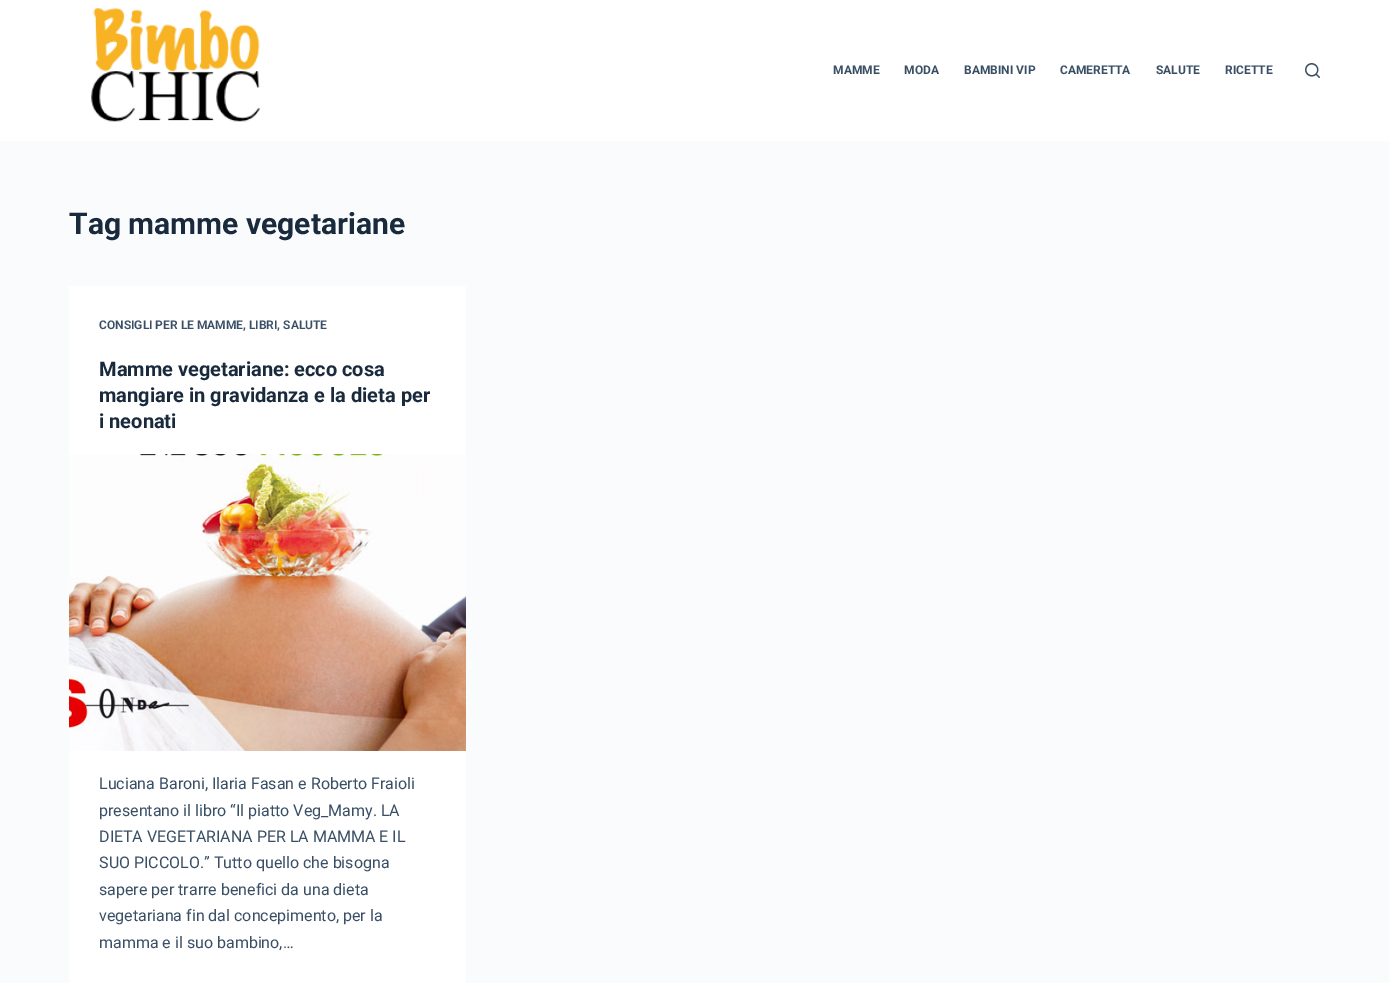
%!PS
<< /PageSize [1389 983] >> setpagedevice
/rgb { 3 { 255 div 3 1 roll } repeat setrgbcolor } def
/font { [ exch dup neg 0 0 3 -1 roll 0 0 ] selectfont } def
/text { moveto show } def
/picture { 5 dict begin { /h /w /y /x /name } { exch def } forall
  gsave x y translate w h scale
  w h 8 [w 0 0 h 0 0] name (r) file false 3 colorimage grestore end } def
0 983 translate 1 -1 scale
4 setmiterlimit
250 251 252 rgb
0 0 1389 983 rectfill
255 255 255 rgb
0 0 1389 141 rectfill
(img_01.rgb) 91 8 169 114 picture
(img_02.rgb) 1305 63 15 15 picture
69 286 397 697 rectfill
(img_03.rgb) 69 454 397 297 picture
/Roboto-Bold 12 font
58 79 102 rgb
(MAMME) 833 74 text
(MODA) 904 74 text
(BAMBINI VIP) 964 74 text
(CAMERETTA) 1060 74 text
(SALUTE) 1156 74 text
(RICETTE) 1225 74 text
/Roboto-Bold 30 font
25 42 61 rgb
(Tag mamme vegetariane) 69 234 text
/Roboto-SemiBold 12 font
58 79 102 rgb
(CONSIGLI PER LE MAMME, LIBRI, SALUTE) 99 329 text
/Roboto-Bold 20 font
25 42 61 rgb
(Mamme vegetariane: ecco cosa) 99 376 text
(mangiare in gravidanza e la dieta per) 99 402 text
(i neonati) 99 428 text
/Roboto-Regular 16 font
58 79 102 rgb
(Luciana Baroni, Ilaria Fasan e Roberto Fraioli) 99 789 text
(presentano il libro “Il piatto Veg_Mamy. LA) 99 816 text
(DIETA VEGETARIANA PER LA MAMMA E IL) 99 842 text
(SUO PICCOLO.” Tutto quello che bisogna) 99 868 text
(sapere per trarre benefici da una dieta) 99 895 text
(vegetariana fin dal concepimento, per la) 99 921 text
(mamma e il suo bambino,…) 99 948 text
showpage
